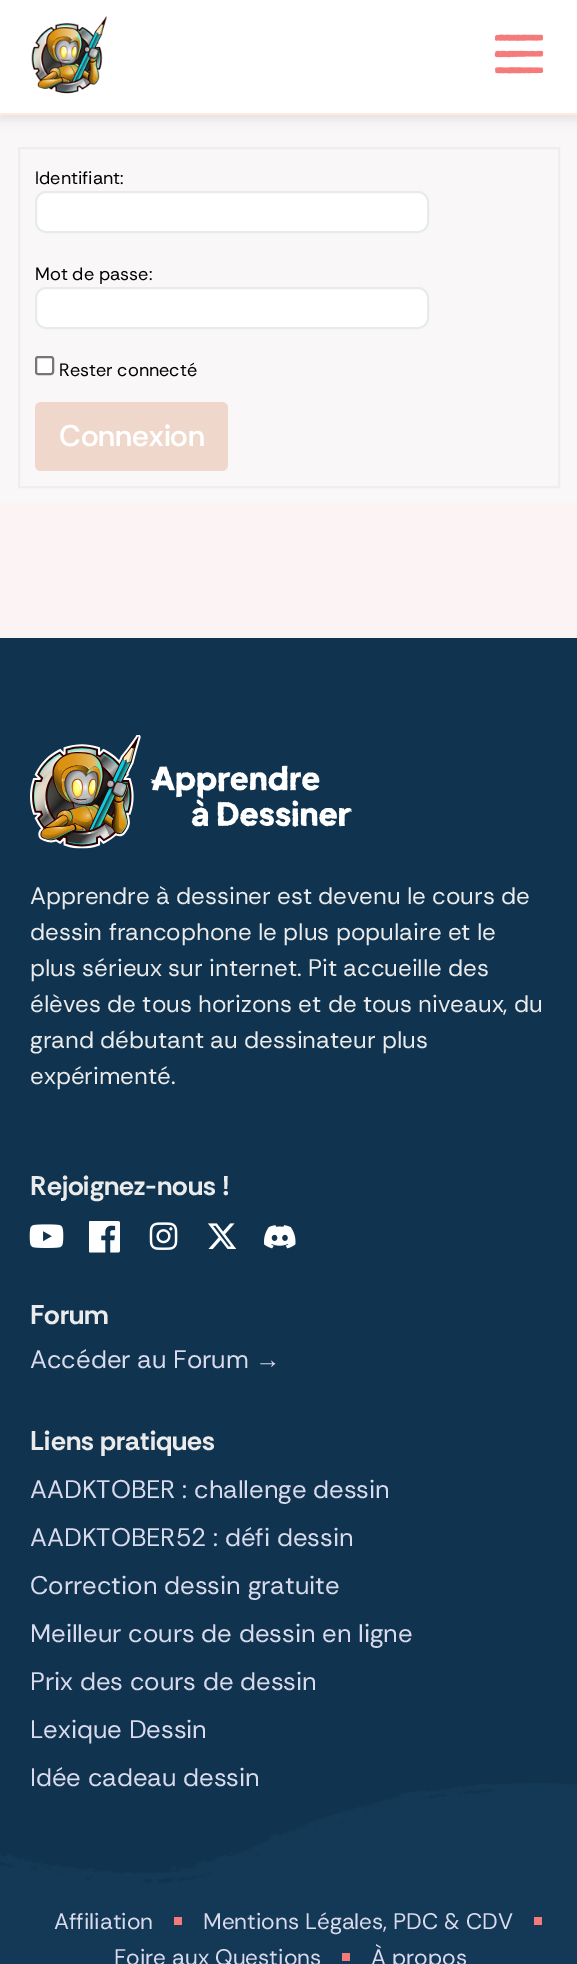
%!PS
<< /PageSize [577 1964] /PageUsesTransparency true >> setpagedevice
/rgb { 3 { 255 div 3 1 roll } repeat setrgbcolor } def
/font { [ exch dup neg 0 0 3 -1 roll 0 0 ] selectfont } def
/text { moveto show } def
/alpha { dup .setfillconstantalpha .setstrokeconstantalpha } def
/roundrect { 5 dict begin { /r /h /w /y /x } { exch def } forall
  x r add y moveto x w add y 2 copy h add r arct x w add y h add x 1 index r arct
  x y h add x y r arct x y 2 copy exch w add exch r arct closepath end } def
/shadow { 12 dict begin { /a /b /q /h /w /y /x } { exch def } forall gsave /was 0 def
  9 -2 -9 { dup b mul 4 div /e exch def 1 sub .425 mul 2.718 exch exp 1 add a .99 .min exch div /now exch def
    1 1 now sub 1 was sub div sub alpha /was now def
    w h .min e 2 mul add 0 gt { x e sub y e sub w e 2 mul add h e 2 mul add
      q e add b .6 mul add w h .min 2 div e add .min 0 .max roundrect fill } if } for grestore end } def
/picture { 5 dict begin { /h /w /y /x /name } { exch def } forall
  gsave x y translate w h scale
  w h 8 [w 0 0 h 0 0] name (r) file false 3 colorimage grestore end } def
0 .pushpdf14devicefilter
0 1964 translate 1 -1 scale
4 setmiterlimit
252 244 244 rgb
0 0 577 1964 rectfill
249 247 247 rgb
0 115 577 388 rectfill
50 50 50 rgb
0 6 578 114 0 5 0.1 shadow
255 255 255 rgb
0 0 577 113 rectfill
255 234 221 rgb
0 113 577 2 rectfill
(img_01.rgb) 31 16 76 78 picture
(img_02.rgb) 494 34 50 40 picture
238 238 238 rgb
2 setlinewidth
19 148 540 339 rectstroke
255 255 255 rgb
36 192 392 40 10 roundrect gsave fill grestore
232 235 237 rgb
stroke
255 255 255 rgb
36 288 392 40 10 roundrect gsave fill grestore
232 235 237 rgb
stroke
255 255 255 rgb
36 357 17 17 2 roundrect gsave fill grestore
118 118 118 rgb
stroke
239 215 203 rgb
35 402 193 69 6 roundrect fill
16 52 80 rgb
0 638 577 1326 rectfill
(img_03.rgb) 0 1783 577 181 picture
(img_04.rgb) 30 735 322 114 picture
(img_05.rgb) 29 1224 35 24 picture
(img_06.rgb) 89 1221 31 32 picture
(img_07.rgb) 149 1222 29 28 picture
(img_08.rgb) 208 1223 29 26 picture
(img_09.rgb) 264 1225 32 24 picture
244 123 122 rgb
174 1917 8 8 rectfill
534 1917 8 8 rectfill
342 1953 8 8 rectfill
/RethinkSans-Regular 18 font
0 0 0 rgb
(Identifiant:) 35 184 text
(Mot de passe:) 35 280 text
(Rester connecté) 59 376 text
/RethinkSans-SemiBold 30 font
255 255 255 rgb
(Connexion) 59 446 text
/RethinkSans-Regular 24 font
235 235 235 rgb
(Apprendre à dessiner est devenu le cours de) 30 904 text
(dessin francophone le plus populaire et le) 30 940 text
(plus sérieux sur internet. Pit accueille des) 30 976 text
(élèves de tous horizons et de tous niveaux, du) 30 1012 text
(grand débutant au dessinateur plus) 30 1048 text
(expérimenté.) 30 1084 text
/RethinkSans-Bold 27 font
(Rejoignez-nous !) 30 1195 text
(Forum) 30 1324 text
/RethinkSans-Regular 25.5 font
218 218 237 rgb
(Accéder au Forum) 30 1368 text
/LiberationSans-Regular 25.5 font
(→) 255 1368 text
/RethinkSans-Bold 27 font
235 235 235 rgb
(Liens pratiques) 30 1450 text
/RethinkSans-Regular 25.5 font
218 218 237 rgb
(AADKTOBER : challenge dessin) 30 1498 text
(AADKTOBER52 : défi dessin) 30 1546 text
(Correction dessin gratuite) 30 1594 text
(Meilleur cours de dessin en ligne) 30 1642 text
(Prix des cours de dessin) 30 1690 text
(Lexique Dessin) 30 1738 text
(Idée cadeau dessin) 30 1786 text
/RethinkSans-Regular 22.5 font
(Affiliation) 54 1929 text
(Mentions Légales, PDC & CDV) 203 1929 text
(Foire aux Questions) 114 1965 text
(À propos) 371 1965 text
.poppdf14devicefilter showpage
